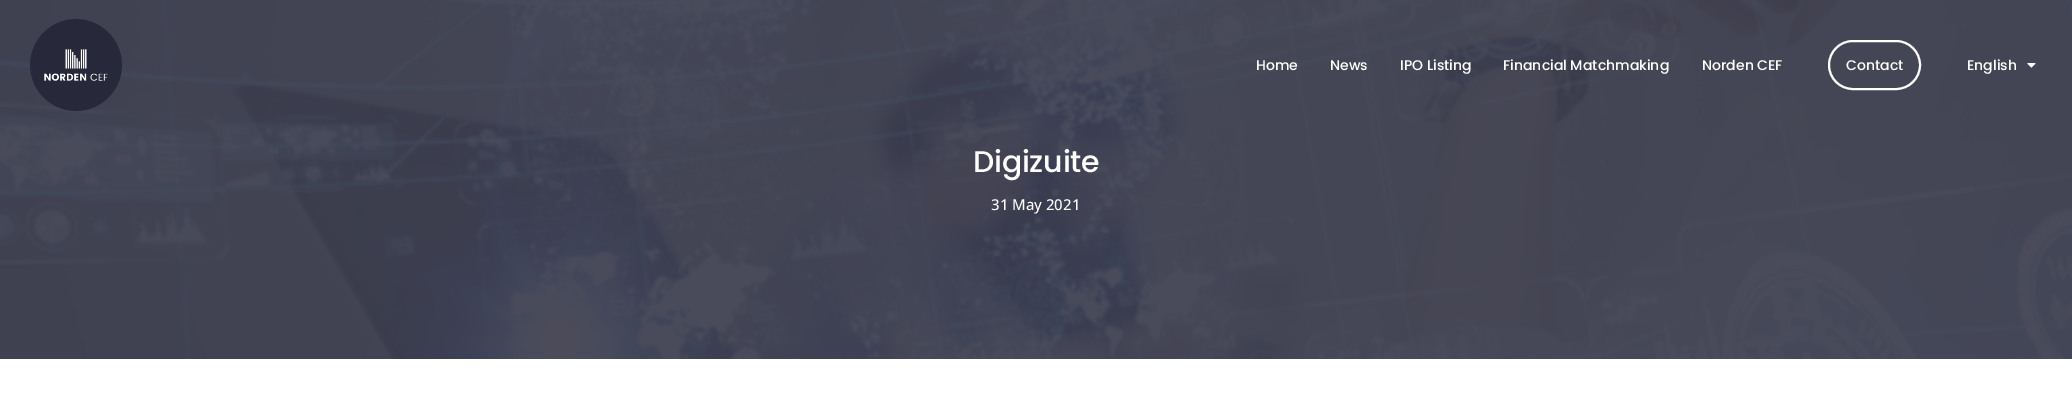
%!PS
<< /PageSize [2072 416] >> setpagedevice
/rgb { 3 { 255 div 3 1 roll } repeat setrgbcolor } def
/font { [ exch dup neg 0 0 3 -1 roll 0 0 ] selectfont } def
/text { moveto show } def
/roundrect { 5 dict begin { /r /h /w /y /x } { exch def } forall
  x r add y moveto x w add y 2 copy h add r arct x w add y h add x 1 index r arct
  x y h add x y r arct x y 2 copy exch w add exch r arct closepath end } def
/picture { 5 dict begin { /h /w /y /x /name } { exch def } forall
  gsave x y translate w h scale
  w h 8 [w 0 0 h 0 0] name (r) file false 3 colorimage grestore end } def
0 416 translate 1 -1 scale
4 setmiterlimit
255 255 255 rgb
0 0 2072 416 rectfill
(img_03.rgb) 0 0 2072 359 picture
(img_01.rgb) 30 19 92 92 picture
2 setlinewidth
1829 41 91 48 24 roundrect stroke
(img_02.rgb) 2027 63 9 5 picture
/Poppins-Medium 14 font
(Home) 1256 70 text
(News) 1330 70 text
(IPO Listing) 1400 70 text
(Financial Matchmaking) 1503 70 text
(Norden CEF) 1702 70 text
(Contact) 1846 70 text
(English) 1967 70 text
/Poppins-Medium 30 font
973 172 moveto -0.25 0 (Digizuite) ashow
/OpenSans-Medium 15 font
(31 May 2021) 991 210 text
showpage
